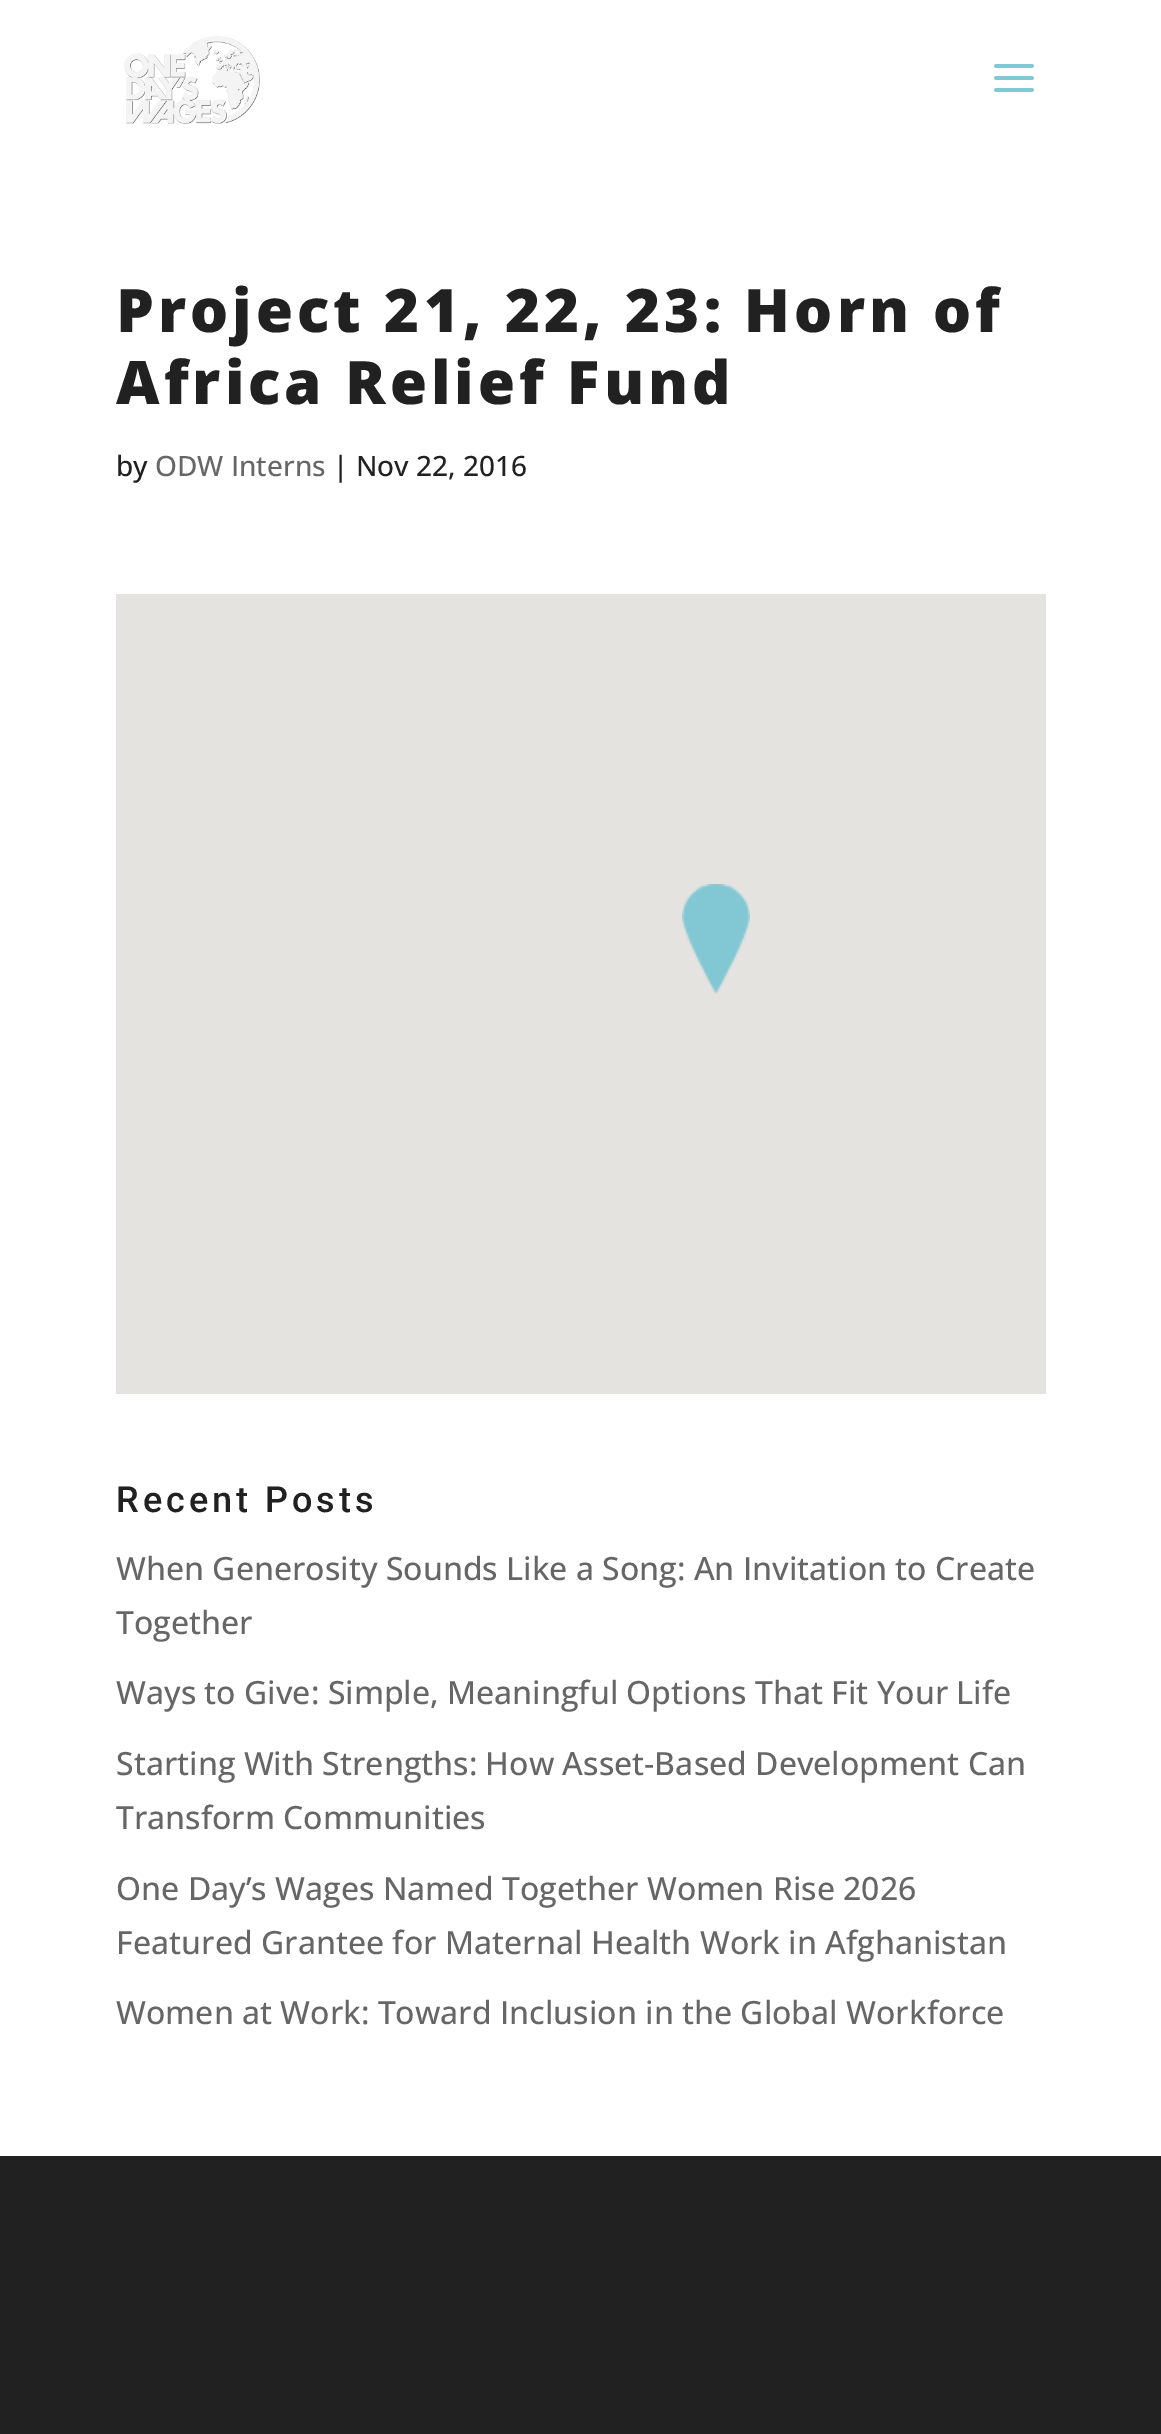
%!PS
<< /PageSize [1161 2434] >> setpagedevice
/rgb { 3 { 255 div 3 1 roll } repeat setrgbcolor } def
/font { [ exch dup neg 0 0 3 -1 roll 0 0 ] selectfont } def
/text { moveto show } def
/picture { 5 dict begin { /h /w /y /x /name } { exch def } forall
  gsave x y translate w h scale
  w h 8 [w 0 0 h 0 0] name (r) file false 3 colorimage grestore end } def
0 2434 translate 1 -1 scale
4 setmiterlimit
33 33 33 rgb
0 0 1161 2434 rectfill
255 255 255 rgb
0 0 1161 2156 rectfill
(img_01.rgb) 124 36 136 88 picture
(img_02.rgb) 994 64 40 28 picture
229 227 223 rgb
116 594 930 800 rectfill
(img_03.rgb) 682 884 68 110 picture
/OpenSans-ExtraBold 60 font
33 33 33 rgb
116 332 moveto 4 0 (Project 21, 22, 23: Horn of) ashow
116 404 moveto 4 0 (Africa Relief Fund) ashow
/OpenSans-Medium 28 font
(by) 116 476 text
102 102 102 rgb
(ODW Interns) 155 476 text
33 33 33 rgb
(| Nov 22, 2016) 333 476 text
/Roboto-Medium 36 font
116 1512 moveto 4 0 (Recent Posts) ashow
/OpenSans-Medium 32 font
102 102 102 rgb
(When Generosity Sounds Like a Song: An Invitation to Create) 116 1580 text
(Together) 116 1634 text
(Ways to Give: Simple, Meaningful Options That Fit Your Life) 116 1704 text
(Starting With Strengths: How Asset-Based Development Can) 116 1775 text
(Transform Communities) 116 1829 text
(One Day’s Wages Named Together Women Rise 2026) 116 1900 text
(Featured Grantee for Maternal Health Work in Afghanistan) 116 1954 text
(Women at Work: Toward Inclusion in the Global Workforce) 116 2024 text
showpage
